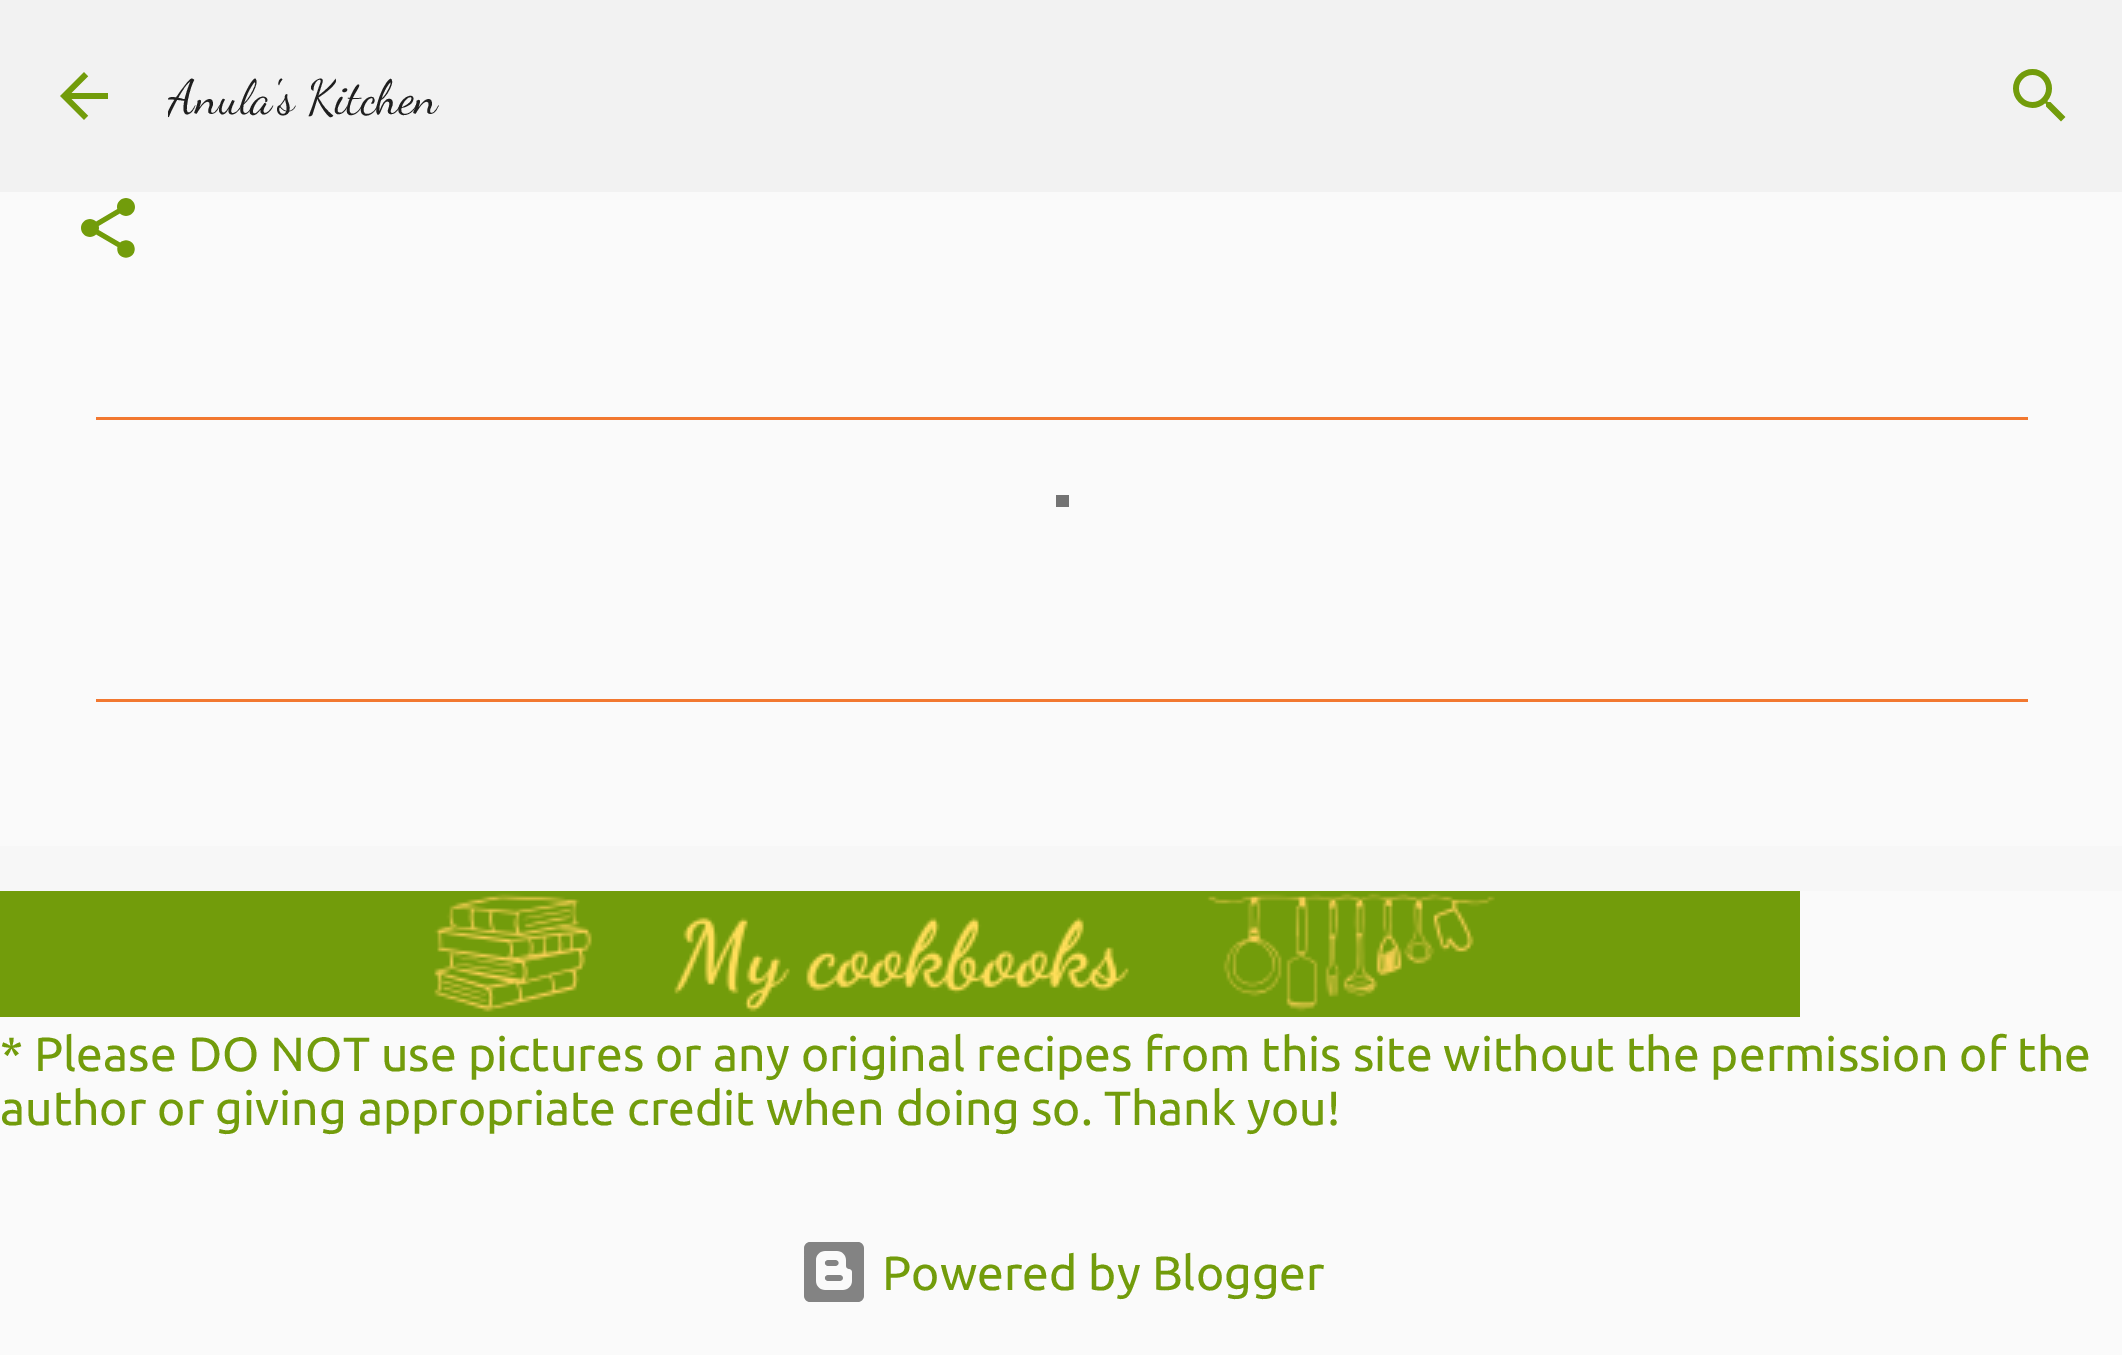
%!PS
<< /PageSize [2122 1355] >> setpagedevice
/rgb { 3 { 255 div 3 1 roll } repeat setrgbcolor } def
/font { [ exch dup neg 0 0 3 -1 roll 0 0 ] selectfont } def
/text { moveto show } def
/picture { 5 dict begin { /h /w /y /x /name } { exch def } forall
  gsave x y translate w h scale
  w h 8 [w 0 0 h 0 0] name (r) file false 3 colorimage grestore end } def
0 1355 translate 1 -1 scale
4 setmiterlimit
250 250 250 rgb
0 0 2122 1355 rectfill
242 242 242 rgb
0 0 2122 192 rectfill
(img_01.rgb) 60 72 48 48 picture
(img_02.rgb) 2013 69 53 53 picture
(img_03.rgb) 81 198 54 60 picture
242 120 48 rgb
96 417 1932 3 rectfill
96 699 1932 3 rectfill
247 247 247 rgb
0 846 2122 45 rectfill
(img_04.rgb) 0 891 1800 126 picture
(img_05.rgb) 804 1242 60 60 picture
115 115 115 rgb
1056 495 13 12 rectfill
gsave
168 69 1788 57 rectclip
/DancingScript-Regular 48 font
31 31 31 rgb
(Anula's Kitchen) 168 113 text
grestore
/Ubuntu-Regular 48 font
114 156 11 rgb
(* Please DO NOT use pictures or any original recipes from this site without the permission of the) 0 1071 text
(author or giving appropriate credit when doing so. Thank you!) 0 1125 text
(Powered by Blogger) 882 1290 text
showpage
